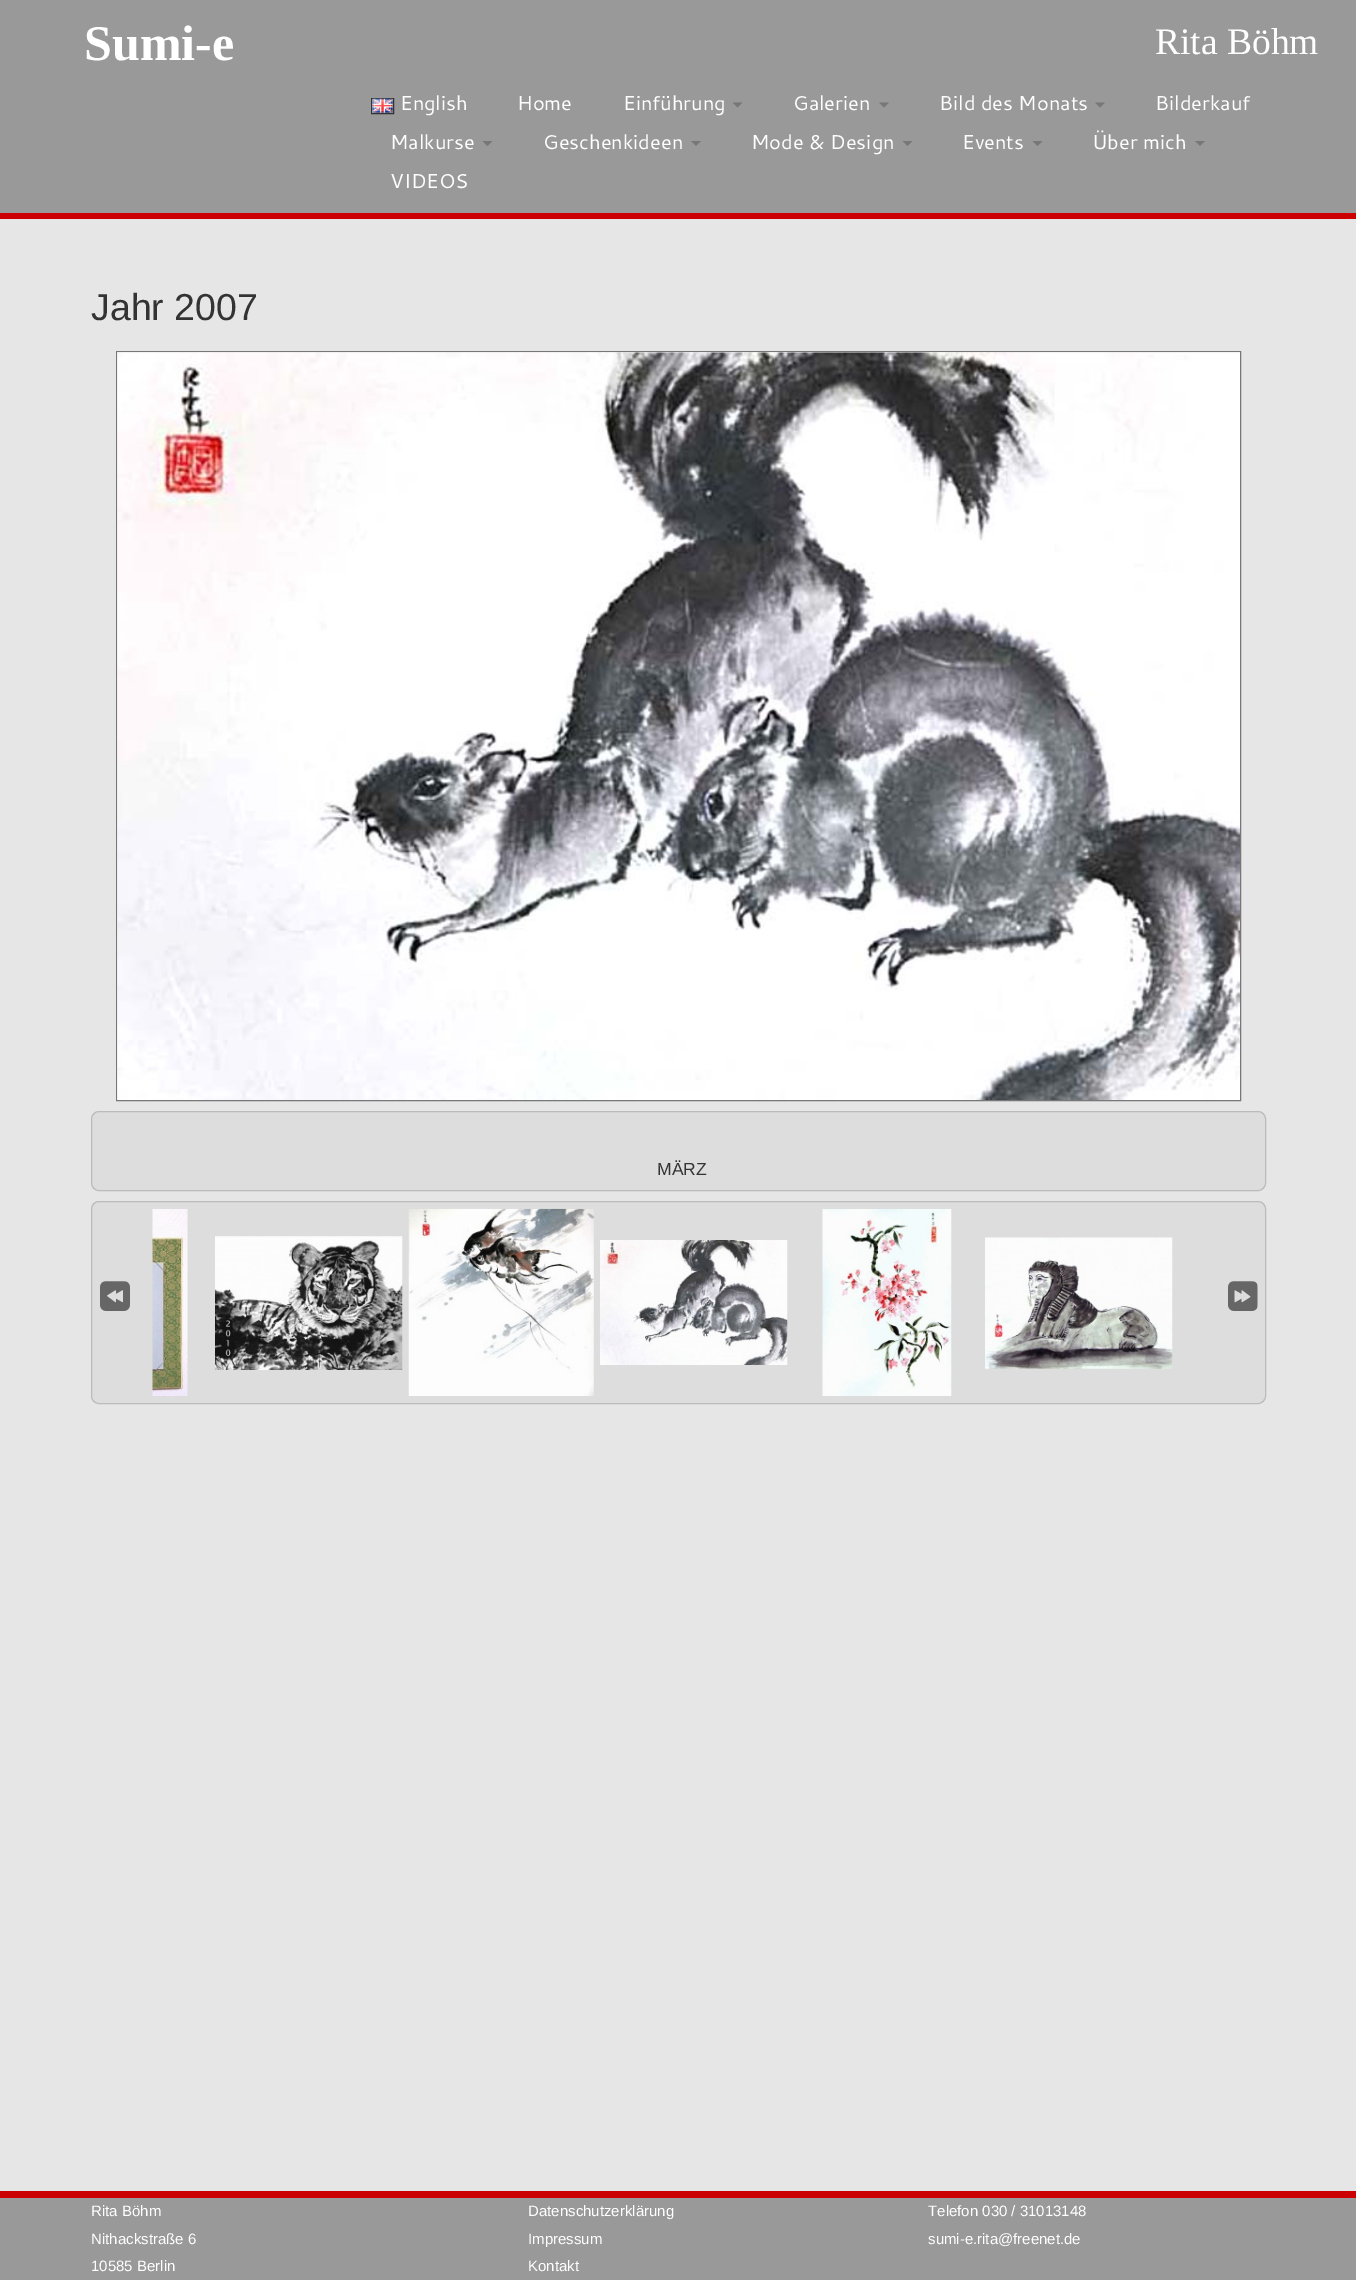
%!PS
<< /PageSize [1356 2280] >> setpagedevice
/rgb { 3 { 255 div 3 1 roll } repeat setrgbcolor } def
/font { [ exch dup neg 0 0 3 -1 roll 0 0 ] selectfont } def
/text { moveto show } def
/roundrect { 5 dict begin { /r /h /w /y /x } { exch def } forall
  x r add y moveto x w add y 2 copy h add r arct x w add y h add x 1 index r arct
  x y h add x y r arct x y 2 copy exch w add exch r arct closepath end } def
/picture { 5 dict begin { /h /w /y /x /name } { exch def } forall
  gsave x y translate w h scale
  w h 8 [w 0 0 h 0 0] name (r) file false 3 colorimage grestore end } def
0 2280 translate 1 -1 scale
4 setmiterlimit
230 230 230 rgb
0 0 1356 2280 rectfill
153 153 153 rgb
0 0 1356 213 rectfill
204 0 0 rgb
0 213 1356 6 rectfill
51 51 51 rgb
371.5 98.5 22 15 rectstroke
(img_01.rgb) 372 98 21 15 picture
119 119 119 rgb
732.5 102.5 moveto 10 0 rlineto -5 5 rlineto closepath fill
879 102.5 moveto 10 0 rlineto -5 5 rlineto closepath fill
1095 102.5 moveto 10 0 rlineto -5 5 rlineto closepath fill
482.5 141 moveto 10 0 rlineto -5 5 rlineto closepath fill
691 141 moveto 10 0 rlineto -5 5 rlineto closepath fill
902.5 141 moveto 10 0 rlineto -5 5 rlineto closepath fill
1032.5 141 moveto 10 0 rlineto -5 5 rlineto closepath fill
1195 141 moveto 10 0 rlineto -5 5 rlineto closepath fill
116.5 351.5 1124 749 rectstroke
(img_02.rgb) 117 352 1123 748 picture
221 221 221 rgb
91.5 1111.5 1174 79 7.5 roundrect gsave fill grestore
187 187 187 rgb
stroke
221 221 221 rgb
91.5 1201.5 1174 202 7.5 roundrect gsave fill grestore
187 187 187 rgb
stroke
(img_03.rgb) 100 1281 30 30 picture
(img_04.rgb) 152 1209 36 187 picture
(img_05.rgb) 215 1236 188 134 picture
(img_06.rgb) 408 1208 186 188 picture
(img_07.rgb) 600 1240 188 125 picture
(img_08.rgb) 822 1209 130 187 picture
(img_09.rgb) 985 1237 188 132 picture
(img_10.rgb) 1228 1281 30 30 picture
153 153 153 rgb
0 2198 1356 82 rectfill
204 0 0 rgb
0 2191 1356 7 rectfill
/LiberationSerif-Bold 50 font
255 255 255 rgb
(Sumi-e) 84 60 text
/LiberationSerif-Regular 37.5 font
(Rita Böhm) 1155 54 text
/Cantarell-Regular 20 font
(English) 400 110 text
(Home) 517 110 text
(Einführung) 623 110 text
(Galerien) 793 110 text
(Bild des Monats) 939 110 text
(Bilderkauf) 1155 110 text
(Malkurse) 390 149 text
(Geschenkideen) 543 149 text
(Mode & Design) 751 149 text
(Events) 962 149 text
(Über mich) 1092 149 text
(VIDEOS) 390 188 text
/LiberationSans-Regular 37.5 font
51 51 51 rgb
(Jahr 2007) 91 320 text
/LiberationSans-Regular 17.5 font
(MÄRZ) 657 1175 text
/LiberationSans-Regular 15 font
255 255 255 rgb
(Rita Böhm) 91 2216 text
(Nithackstraße 6) 91 2244 text
(10585 Berlin) 91 2271 text
(Datenschutzerklärung) 528 2216 text
(Impressum) 528 2244 text
(Kontakt) 528 2271 text
(Telefon 030 / 31013148) 928 2216 text
(sumi-e.rita@freenet.de) 928 2244 text
showpage
